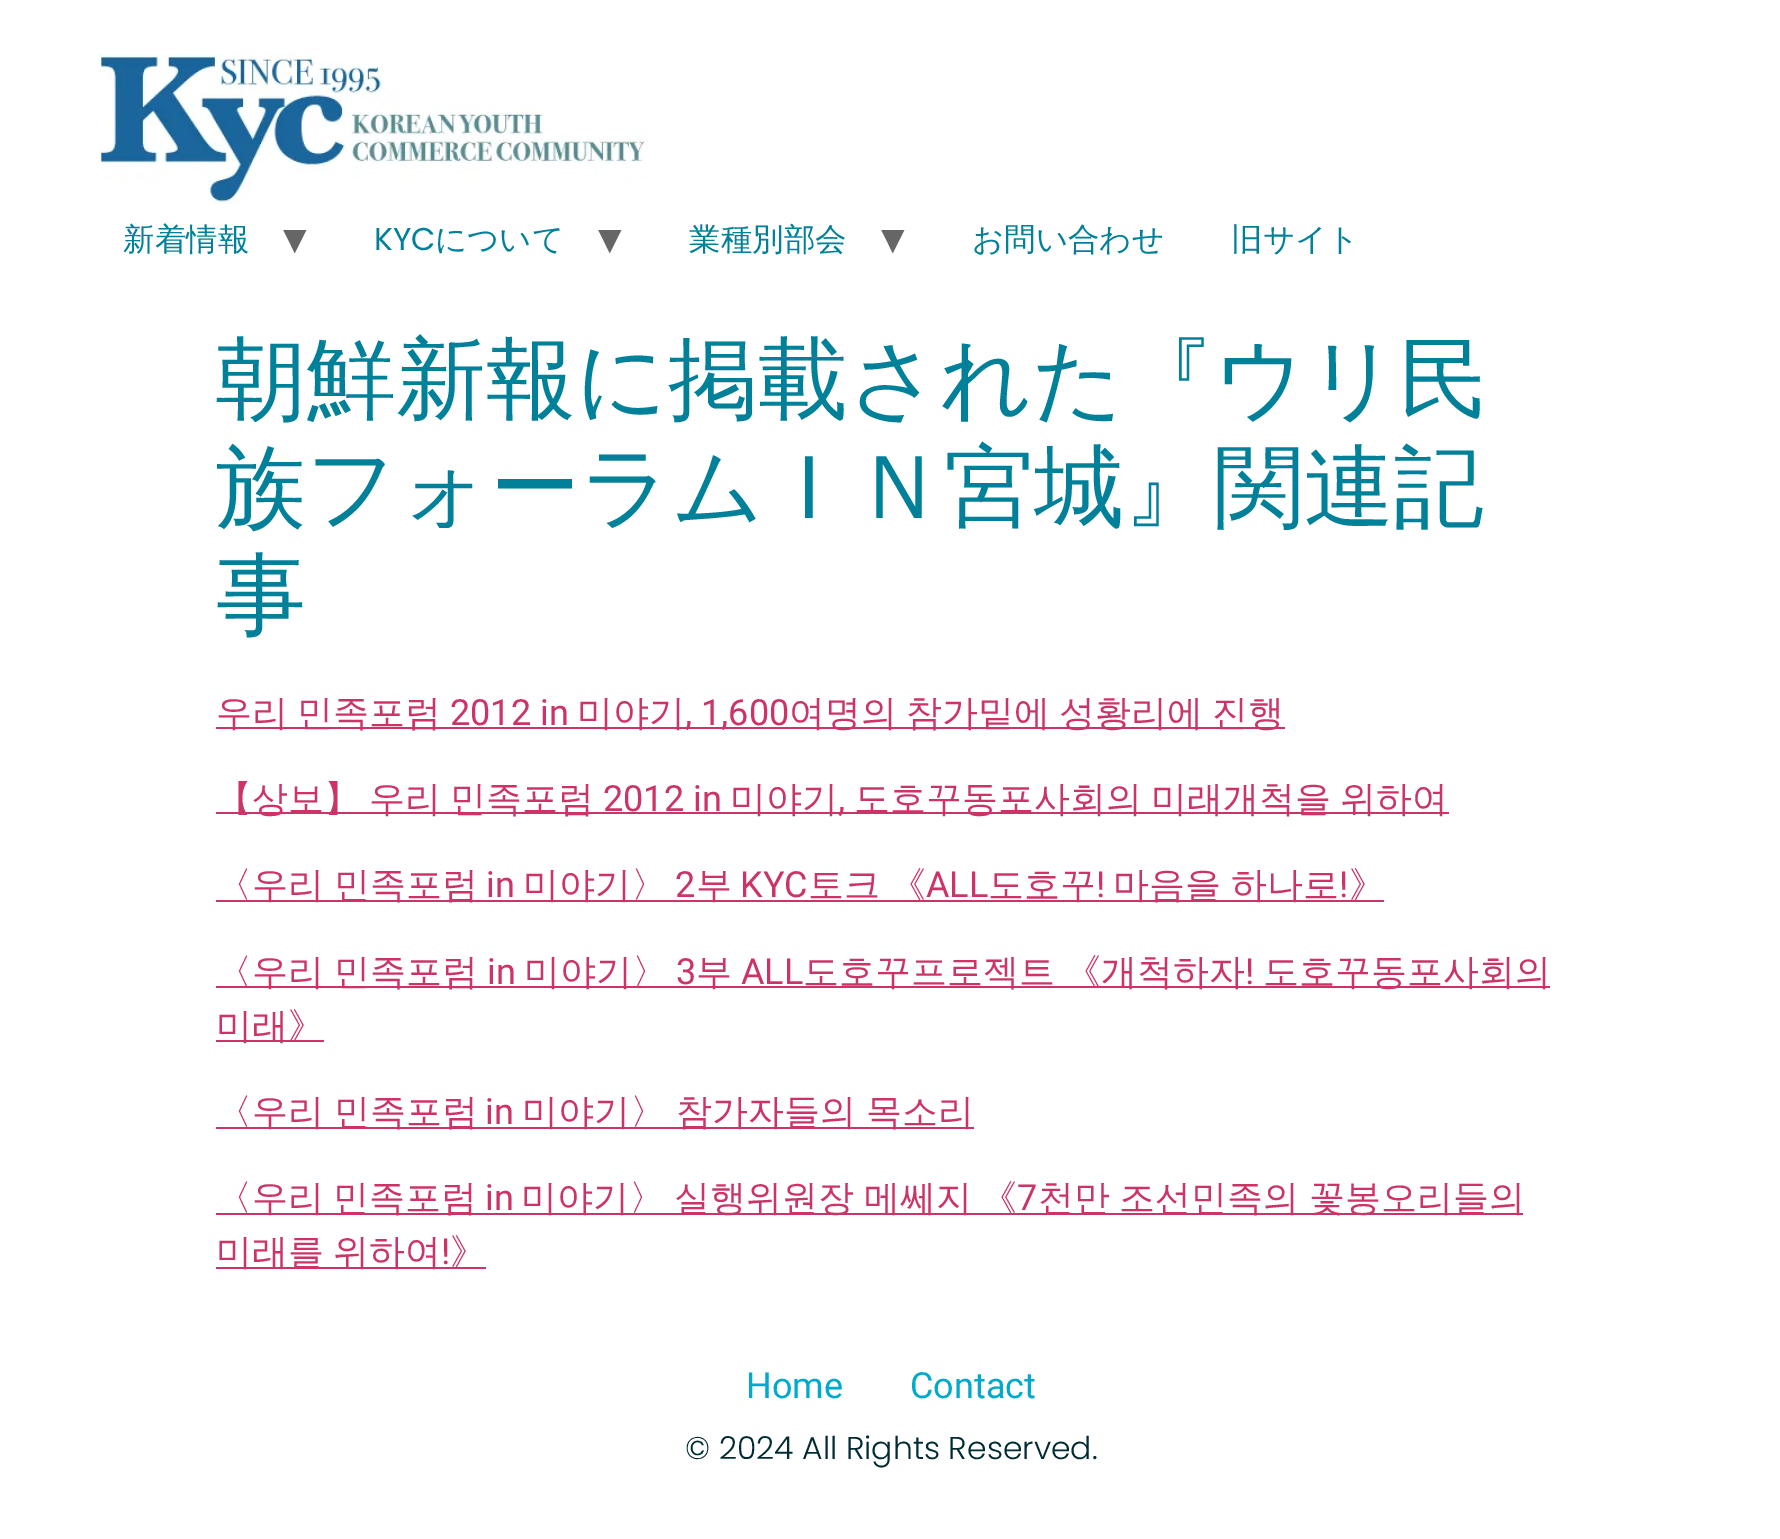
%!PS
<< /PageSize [1780 1539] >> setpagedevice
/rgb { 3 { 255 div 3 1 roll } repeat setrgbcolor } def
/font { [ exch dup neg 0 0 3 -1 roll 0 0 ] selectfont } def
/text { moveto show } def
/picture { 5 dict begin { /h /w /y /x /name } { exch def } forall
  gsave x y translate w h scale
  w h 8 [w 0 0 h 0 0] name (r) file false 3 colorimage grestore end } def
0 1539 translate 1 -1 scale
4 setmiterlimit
255 255 255 rgb
0 0 1780 1539 rectfill
(img_01.rgb) 99 53 549 152 picture
204 51 102 rgb
216 727 1069 2 rectfill
216 812 1233 2 rectfill
216 900 1168 2 rectfill
216 986 1334 2 rectfill
216 1040 108 2 rectfill
216 1127 758 2 rectfill
216 1213 1307 2 rectfill
216 1267 270 2 rectfill
/WenQuanYiZenHei-Medium 31.5 font
0 128 153 rgb
(新着情報) 123 250 text
/DejaVuSans-Regular 47 font
102 102 102 rgb
(▾) 283 254 text
/Poppins-Regular 31.5 font
0 128 153 rgb
(KYC) 374 250 text
/WenQuanYiZenHei-Medium 31.5 font
(について) 435 250 text
/DejaVuSans-Regular 47 font
102 102 102 rgb
(▾) 598 254 text
/WenQuanYiZenHei-Medium 31.5 font
0 128 153 rgb
(業種別部会) 689 250 text
/DejaVuSans-Regular 47 font
102 102 102 rgb
(▾) 881 254 text
/WenQuanYiZenHei-Medium 31.5 font
0 128 153 rgb
(お問い合わせ) 972 250 text
(旧サイト) 1231 250 text
/WenQuanYiZenHei-Medium 90 font
(朝鮮新報に掲載された『ウリ民) 216 410 text
(族フォーラムＩＮ宮城』関連記) 216 518 text
(事) 216 626 text
/WenQuanYiZenHei-Medium 36 font
204 51 102 rgb
(우리) 216 725 text
(민족포럼) 297 725 text
/Roboto-Regular 36 font
(2012 in) 450 725 text
/WenQuanYiZenHei-Medium 36 font
(미야기) 577 725 text
/Roboto-Regular 36 font
(, 1,600) 685 725 text
/WenQuanYiZenHei-Medium 36 font
(여명의) 789 725 text
(참가밑에) 906 725 text
(성황리에) 1059 725 text
(진행) 1212 725 text
(【상보】) 216 811 text
(우리) 369 811 text
(민족포럼) 450 811 text
/Roboto-Regular 36 font
(2012 in) 603 811 text
/WenQuanYiZenHei-Medium 36 font
(미야기) 730 811 text
/Roboto-Regular 36 font
(,) 838 811 text
/WenQuanYiZenHei-Medium 36 font
(도호꾸동포사회의) 854 811 text
(미래개척을) 1151 811 text
(위하여) 1340 811 text
216 897 moveto -1 0 32 (〈우리 민족포럼) widthshow
/Roboto-Regular 36 font
(in) 486 897 text
/WenQuanYiZenHei-Medium 36 font
(미야기〉) 523 897 text
/Roboto-Regular 36 font
(2) 675 897 text
/WenQuanYiZenHei-Medium 36 font
(부) 696 897 text
/Roboto-Regular 36 font
(KYC) 740 897 text
/WenQuanYiZenHei-Medium 36 font
808 897 moveto -1 0 32 (토크 《) widthshow
/Roboto-Regular 36 font
(ALL) 926 897 text
/WenQuanYiZenHei-Medium 36 font
(도호꾸) 988 897 text
/Roboto-Regular 36 font
(!) 1096 897 text
/WenQuanYiZenHei-Medium 36 font
1113 897 moveto -1 0 32 (마음을 하나로) widthshow
/Roboto-Regular 36 font
(!) 1339 897 text
/WenQuanYiZenHei-Medium 36 font
(》) 1349 897 text
216 984 moveto -1 0 32 (〈우리 민족포럼) widthshow
/Roboto-Regular 36 font
(in) 487 984 text
/WenQuanYiZenHei-Medium 36 font
(미야기〉) 524 984 text
/Roboto-Regular 36 font
(3) 676 984 text
/WenQuanYiZenHei-Medium 36 font
(부) 696 984 text
/Roboto-Regular 36 font
(ALL) 741 984 text
/WenQuanYiZenHei-Medium 36 font
803 984 moveto -1 0 32 (도호꾸프로젝트 《개척하자) widthshow
/Roboto-Regular 36 font
(!) 1245 984 text
/WenQuanYiZenHei-Medium 36 font
(도호꾸동포사회의) 1263 984 text
(미래》) 216 1038 text
216 1124 moveto -1 0 32 (〈우리 민족포럼) widthshow
/Roboto-Regular 36 font
(in) 485 1124 text
/WenQuanYiZenHei-Medium 36 font
522 1124 moveto -1 0 32 (미야기〉 참가자들의 목소리) widthshow
216 1210 moveto -1.5 0 32 (〈우리 민족포럼) widthshow
/Roboto-Regular 36 font
(in) 485 1210 text
/WenQuanYiZenHei-Medium 36 font
521 1210 moveto -1.5 0 32 (미야기〉 실행위원장 메쎄지 《) widthshow
/Roboto-Regular 36 font
(7) 1017 1210 text
/WenQuanYiZenHei-Medium 36 font
1038 1210 moveto -1.5 0 32 (천만 조선민족의 꽃봉오리들의) widthshow
216 1264 moveto -2 0 32 (미래를 위하여) widthshow
/Roboto-Regular 36 font
(!) 441 1264 text
/WenQuanYiZenHei-Medium 36 font
(》) 450 1264 text
/Roboto-Regular 36 font
0 170 204 rgb
(Home) 746 1398 text
(Contact) 910 1398 text
/Poppins-Light 31.5 font
0 43 51 rgb
(© 2024 All Rights Reserved.) 685 1459 text
showpage
